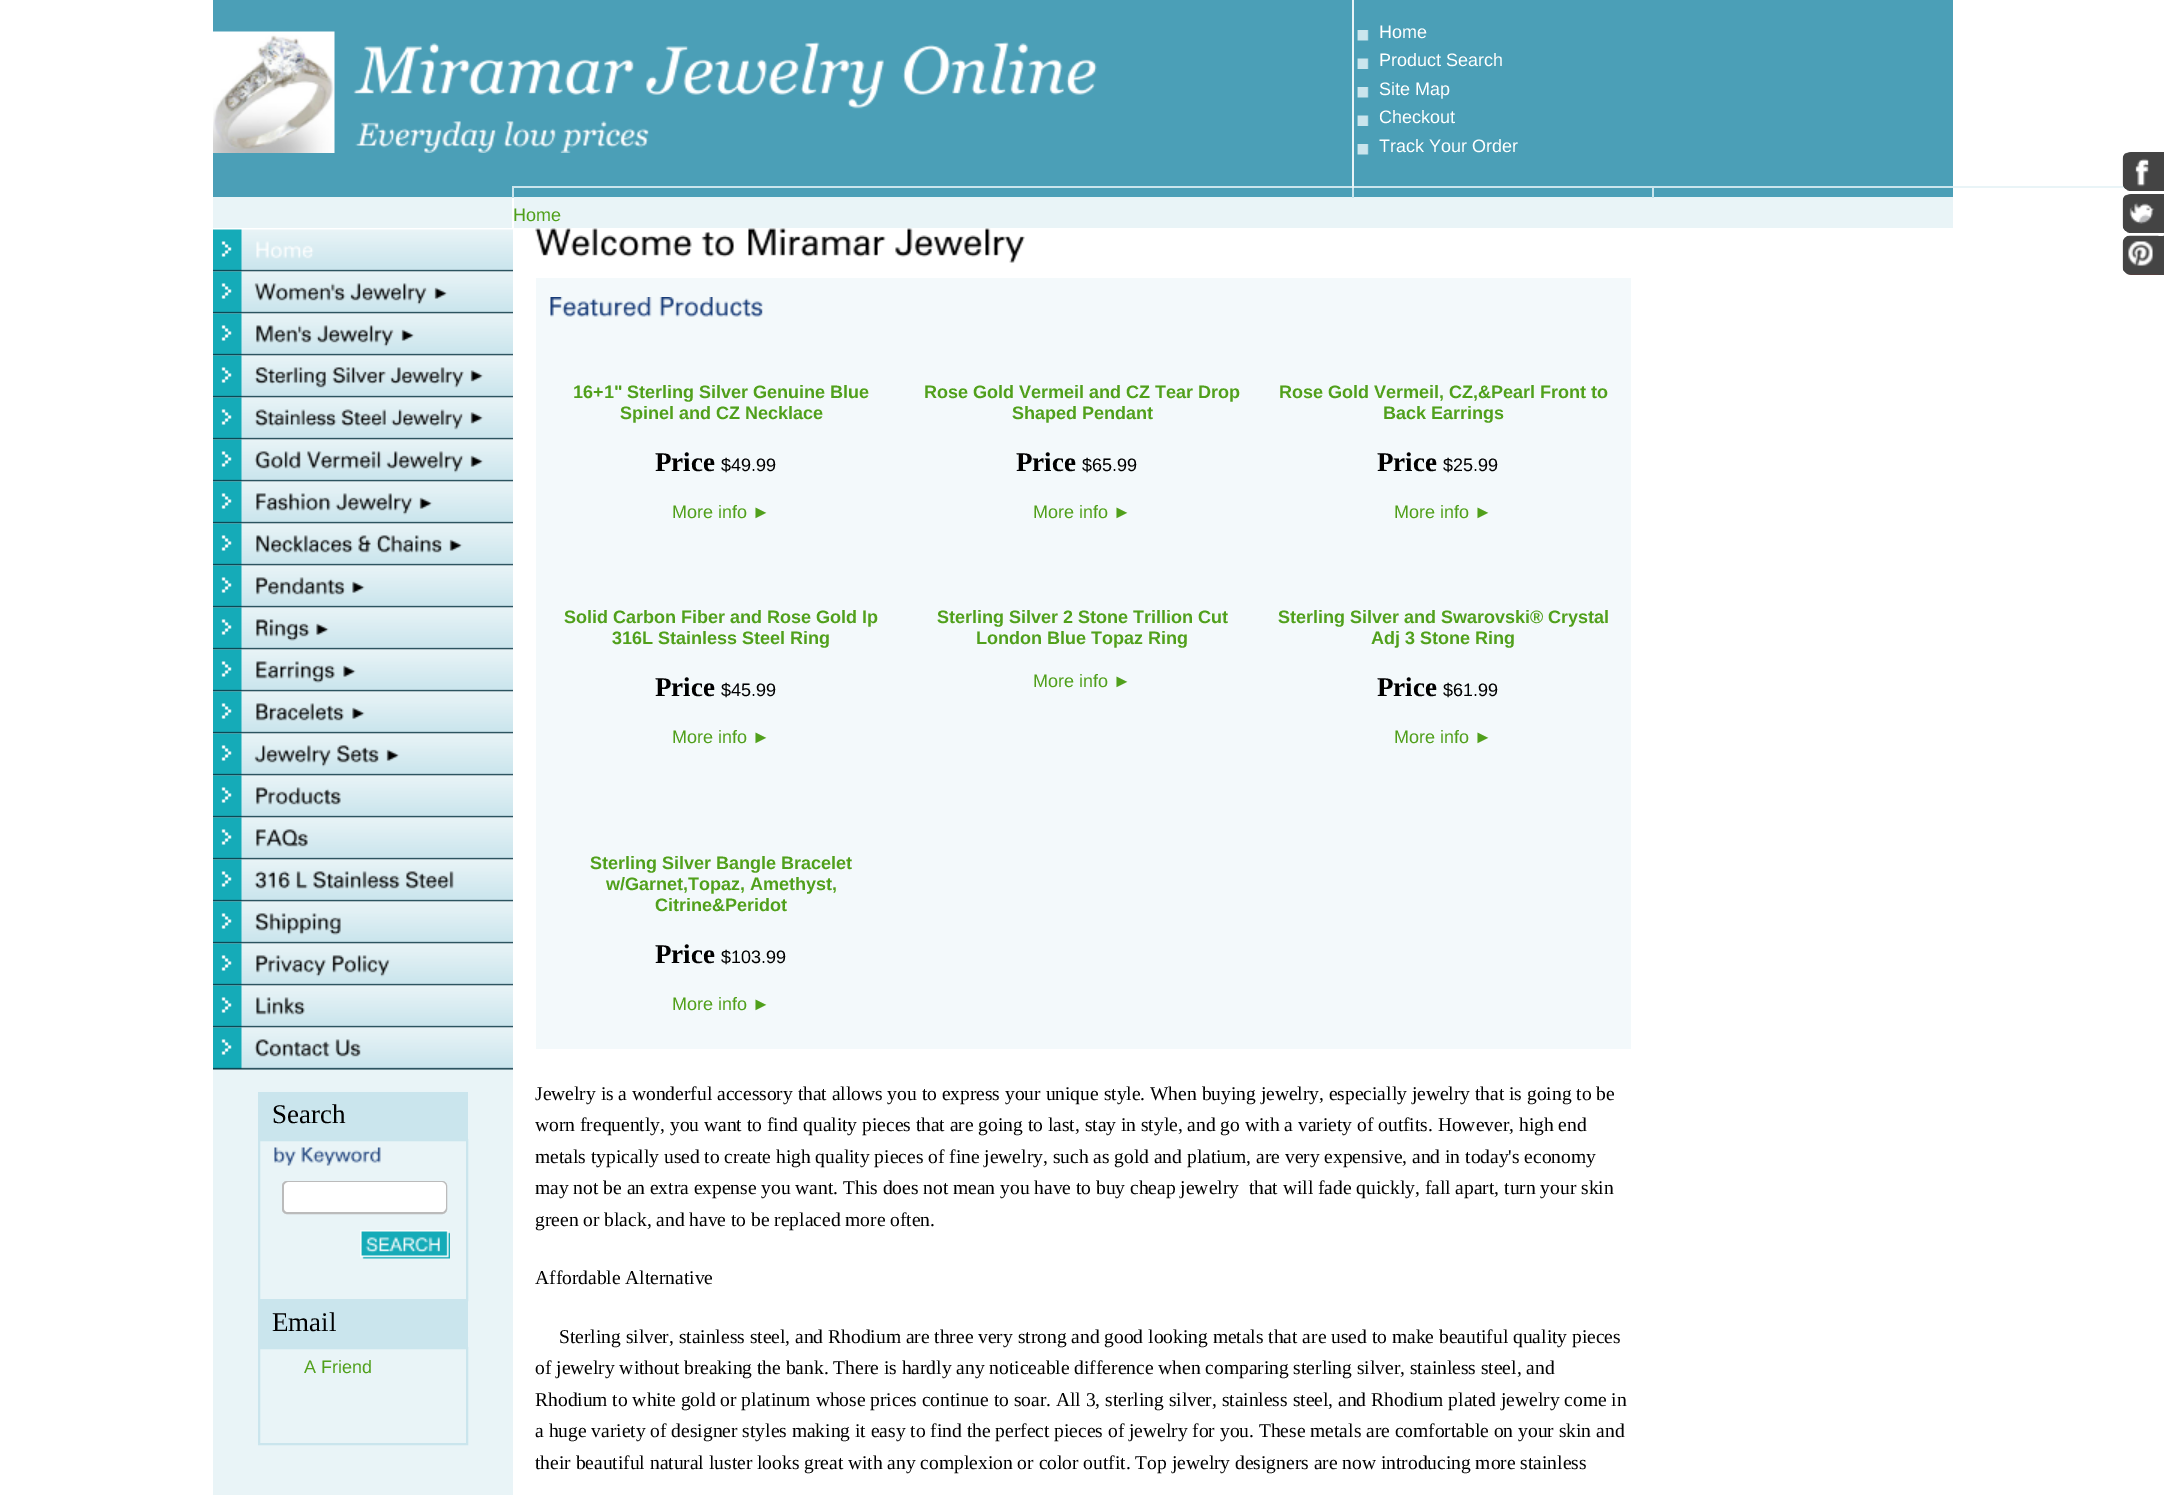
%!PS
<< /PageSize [2164 1495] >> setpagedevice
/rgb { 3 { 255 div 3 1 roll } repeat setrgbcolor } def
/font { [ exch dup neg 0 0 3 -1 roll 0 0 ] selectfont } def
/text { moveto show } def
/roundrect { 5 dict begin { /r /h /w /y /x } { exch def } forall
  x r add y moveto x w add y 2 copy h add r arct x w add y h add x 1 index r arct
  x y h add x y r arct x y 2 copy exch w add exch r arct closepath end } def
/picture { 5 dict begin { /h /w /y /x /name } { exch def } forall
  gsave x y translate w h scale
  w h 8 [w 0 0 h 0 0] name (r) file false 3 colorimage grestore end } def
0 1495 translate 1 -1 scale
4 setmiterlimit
255 255 255 rgb
0 0 2164 1495 rectfill
75 159 183 rgb
213 0 1139 186 rectfill
(img_01.rgb) 213 31 884 122 picture
1354 0 599 186 rectfill
233 244 247 rgb
1952 186 173 2 rectfill
202 229 237 rgb
1652 186 301 2 rectfill
233 244 247 rgb
514 197 1439 31 rectfill
202 229 237 rgb
1652 186 2 12 rectfill
1352 186 301 2 rectfill
1352 186 2 12 rectfill
512 186 841 2 rectfill
233 244 247 rgb
1352 0 2 188 rectfill
(img_02.rgb) 1357 30 12 11 picture
(img_03.rgb) 1357 58 12 11 picture
(img_02.rgb) 1357 87 12 11 picture
(img_03.rgb) 1357 115 12 11 picture
(img_02.rgb) 1357 144 12 11 picture
75 159 183 rgb
213 186 299 11 rectfill
514 188 838 9 rectfill
202 229 237 rgb
512 186 2 12 rectfill
75 159 183 rgb
1354 188 298 9 rectfill
1654 188 299 9 rectfill
68 68 68 rgb
2131 152 moveto 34 0 rlineto 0 39 rlineto -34 0 rlineto -4.5 0 -8 -3.5 -8 -8 rcurveto 0 -23 rlineto 0 -4.5 3.5 -8 8 -8 rcurveto closepath fill
(img_04.rgb) 2122 152 27 38 picture
2131 194 moveto 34 0 rlineto 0 39 rlineto -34 0 rlineto -4.5 0 -8 -3.5 -8 -8 rcurveto 0 -23 rlineto 0 -4.5 3.5 -8 8 -8 rcurveto closepath fill
(img_05.rgb) 2122 194 33 38 picture
2131 236 moveto 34 0 rlineto 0 39 rlineto -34 0 rlineto -4.5 0 -8 -3.5 -8 -8 rcurveto 0 -23 rlineto 0 -4.5 3.5 -8 8 -8 rcurveto closepath fill
(img_06.rgb) 2122 235 42 40 picture
233 244 247 rgb
213 197 299 31 rectfill
213 271 300 1224 rectfill
(img_07.rgb) 213 229 300 43 picture
(img_08.rgb) 213 271 300 43 picture
(img_09.rgb) 213 313 300 43 picture
(img_10.rgb) 213 355 300 43 picture
(img_11.rgb) 213 397 300 43 picture
(img_12.rgb) 213 439 300 43 picture
(img_13.rgb) 213 481 300 43 picture
(img_14.rgb) 213 523 300 43 picture
(img_15.rgb) 213 565 300 43 picture
(img_16.rgb) 213 607 300 43 picture
(img_17.rgb) 213 649 300 43 picture
(img_18.rgb) 213 691 300 43 picture
(img_19.rgb) 213 733 300 43 picture
(img_20.rgb) 213 775 300 43 picture
(img_21.rgb) 213 817 300 43 picture
(img_22.rgb) 213 859 300 43 picture
(img_23.rgb) 213 901 300 43 picture
(img_24.rgb) 213 943 300 43 picture
(img_25.rgb) 213 985 300 43 picture
(img_26.rgb) 213 1027 300 43 picture
202 229 237 rgb
258 1092 210 47 rectfill
2 setlinewidth
259 1140 208 160 rectstroke
(img_27.rgb) 274 1147 107 19 picture
255 255 255 rgb
283 1182 163 31 4 roundrect gsave fill grestore
187 187 187 rgb
stroke
255 255 255 rgb
284 1182 162 30 5 roundrect fill
(img_28.rgb) 360 1230 90 29 picture
202 229 237 rgb
258 1301 210 46 rectfill
259 1348 208 96 rectstroke
(img_29.rgb) 535 228 490 35 picture
243 249 251 rgb
536 278 1095 771 rectfill
(img_30.rgb) 550 297 213 20 picture
/LiberationSans-Regular 18 font
255 255 255 rgb
(Home) 1379 38 text
(Product Search) 1379 66 text
(Site Map) 1379 95 text
(Checkout) 1379 123 text
(Track Your Order) 1379 152 text
80 160 27 rgb
(Home) 513 221 text
/LiberationSerif-Regular 27 font
0 0 0 rgb
(Search) 272 1123 text
(Email) 272 1331 text
/LiberationSans-Regular 18 font
80 160 27 rgb
(A Friend) 304 1373 text
/LiberationSans-Bold 18 font
(16+1" Sterling Silver Genuine Blue) 573 398 text
(Spinel and CZ Necklace) 620 419 text
/LiberationSerif-Bold 27 font
0 0 0 rgb
(Price) 655 471 text
/LiberationSans-Regular 18 font
($49.99) 721 471 text
80 160 27 rgb
(More info ►) 672 518 text
/LiberationSans-Bold 18 font
(Rose Gold Vermeil and CZ Tear Drop) 924 398 text
(Shaped Pendant) 1012 419 text
/LiberationSerif-Bold 27 font
0 0 0 rgb
(Price) 1016 471 text
/LiberationSans-Regular 18 font
($65.99) 1082 471 text
80 160 27 rgb
(More info ►) 1033 518 text
/LiberationSans-Bold 18 font
(Rose Gold Vermeil, CZ,&Pearl Front to) 1279 398 text
(Back Earrings) 1383 419 text
/LiberationSerif-Bold 27 font
0 0 0 rgb
(Price) 1377 471 text
/LiberationSans-Regular 18 font
($25.99) 1443 471 text
80 160 27 rgb
(More info ►) 1394 518 text
/LiberationSans-Bold 18 font
(Solid Carbon Fiber and Rose Gold Ip) 564 623 text
(316L Stainless Steel Ring) 612 644 text
/LiberationSerif-Bold 27 font
0 0 0 rgb
(Price) 655 696 text
/LiberationSans-Regular 18 font
($45.99) 721 696 text
80 160 27 rgb
(More info ►) 672 743 text
/LiberationSans-Bold 18 font
(Sterling Silver 2 Stone Trillion Cut) 937 623 text
(London Blue Topaz Ring) 976 644 text
/LiberationSans-Regular 18 font
(More info ►) 1033 687 text
/LiberationSans-Bold 18 font
(Sterling Silver and Swarovski® Crystal) 1278 623 text
(Adj 3 Stone Ring) 1371 644 text
/LiberationSerif-Bold 27 font
0 0 0 rgb
(Price) 1377 696 text
/LiberationSans-Regular 18 font
($61.99) 1443 696 text
80 160 27 rgb
(More info ►) 1394 743 text
/LiberationSans-Bold 18 font
(Sterling Silver Bangle Bracelet) 590 869 text
(w/Garnet,Topaz, Amethyst,) 606 890 text
(Citrine&Peridot) 655 911 text
/LiberationSerif-Bold 27 font
0 0 0 rgb
(Price) 655 963 text
/LiberationSans-Regular 18 font
($103.99) 721 963 text
80 160 27 rgb
(More info ►) 672 1010 text
/LiberationSerif-Regular 19.5 font
0 0 0 rgb
(Jewelry is a wonderful accessory that allows you to express your unique style. When buying jewelry, especially jewelry that is going to be) 535 1100 text
(worn frequently, you want to find quality pieces that are going to last, stay in style, and go with a variety of outfits. However, high end) 535 1131 text
(metals typically used to create high quality pieces of fine jewelry, such as gold and platium, are very expensive, and in today's economy) 535 1163 text
(may not be an extra expense you want. This does not mean you have to buy cheap jewelry  that will fade quickly, fall apart, turn your skin) 535 1194 text
(green or black, and have to be replaced more often.) 535 1226 text
(Affordable Alternative) 535 1284 text
(Sterling silver, stainless steel, and Rhodium are three very strong and good looking metals that are used to make beautiful quality pieces) 559 1343 text
(of jewelry without breaking the bank. There is hardly any noticeable difference when comparing sterling silver, stainless steel, and) 535 1374 text
(Rhodium to white gold or platinum whose prices continue to soar. All 3, sterling silver, stainless steel, and Rhodium plated jewelry come in) 535 1406 text
(a huge variety of designer styles making it easy to find the perfect pieces of jewelry for you. These metals are comfortable on your skin and) 535 1437 text
(their beautiful natural luster looks great with any complexion or color outfit. Top jewelry designers are now introducing more stainless) 535 1469 text
showpage
